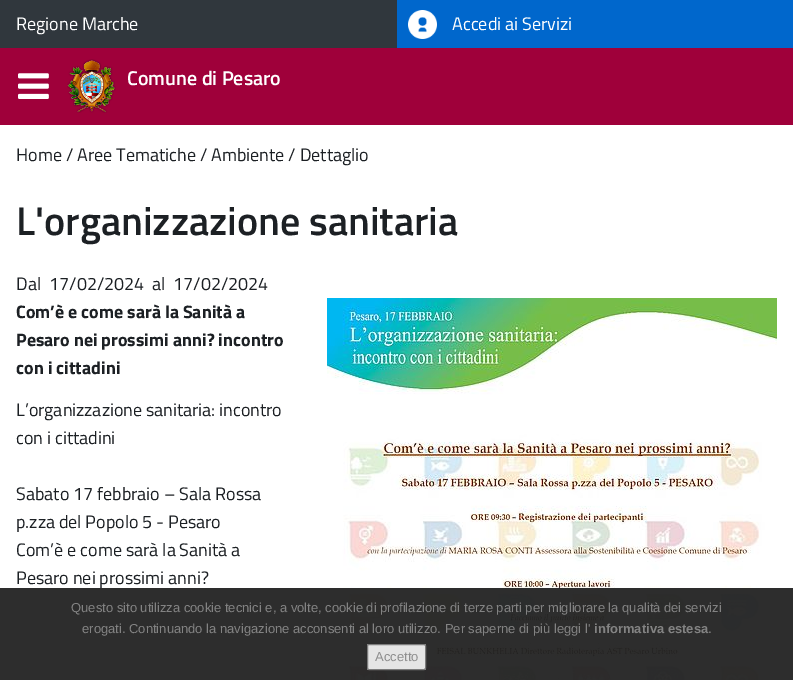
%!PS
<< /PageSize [793 680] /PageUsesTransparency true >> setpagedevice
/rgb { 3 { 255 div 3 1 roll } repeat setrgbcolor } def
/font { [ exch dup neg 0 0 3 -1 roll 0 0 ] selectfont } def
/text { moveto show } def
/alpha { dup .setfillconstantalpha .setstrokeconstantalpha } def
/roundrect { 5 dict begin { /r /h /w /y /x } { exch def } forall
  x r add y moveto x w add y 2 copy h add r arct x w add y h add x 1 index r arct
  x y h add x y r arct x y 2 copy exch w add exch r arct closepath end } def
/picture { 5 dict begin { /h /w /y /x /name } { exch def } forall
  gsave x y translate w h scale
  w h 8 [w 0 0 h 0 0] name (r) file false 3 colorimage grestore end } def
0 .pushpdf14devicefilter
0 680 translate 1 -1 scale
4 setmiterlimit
255 255 255 rgb
0 0 793 680 rectfill
159 0 58 rgb
0 48 793 77 rectfill
48 55 61 rgb
0 0 397 48 rectfill
0 103 204 rgb
397 0 396 48 rectfill
(img_01.rgb) 408 10 29 29 picture
(img_02.rgb) 18 73 31 26 picture
(img_03.rgb) 67 59 49 54 picture
(img_04.rgb) 327 298 450 382 picture
0.95 alpha
34 34 34 rgb
0 588 793 92 rectfill
1 alpha
229 229 229 rgb
367 644 59 26 2 roundrect fill
0.95 alpha
118 118 118 rgb
367.5 644.5 58 25 1.5 roundrect stroke
/TitilliumWeb-Regular 18 font
1 alpha
255 255 255 rgb
(Regione Marche) 16 30 text
(Accedi ai Servizi) 452 30 text
/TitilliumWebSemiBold-SemiBold 20 font
(Comune di Pesaro) 127 85 text
/TitilliumWeb-Regular 18 font
28 32 36 rgb
(Home / Aree Tematiche / Ambiente / Dettaglio) 16 161 text
/TitilliumWebSemiBold-SemiBold 40 font
(L'organizzazione sanitaria) 16 235 text
/TitilliumWeb-Regular 18 font
(Dal) 16 290 text
(17/02/2024) 49 290 text
(al) 152 290 text
(17/02/2024) 173 290 text
/TitilliumWeb-Bold 18 font
(Com’è e come sarà la Sanità a) 16 318 text
(Pesaro nei prossimi anni? incontro) 16 346 text
(con i cittadini) 16 374 text
/TitilliumWeb-Regular 18 font
(L’organizzazione sanitaria: incontro) 16 416 text
(con i cittadini) 16 444 text
(Sabato 17 febbraio – Sala Rossa) 16 500 text
(p.zza del Popolo 5 - Pesaro) 16 528 text
(Com’è e come sarà la Sanità a) 16 556 text
(Pesaro nei prossimi anni?) 16 584 text
/LiberationSans-Regular 13 font
131 131 131 rgb
(Questo sito utilizza cookie tecnici e, a volte, cookie di profilazione di terze parti per migliorare la qualità dei servizi) 71 612 text
(erogati. Continuando la navigazione acconsenti al loro utilizzo. Per saperne di più leggi l') 82 633 text
/LiberationSans-Bold 13 font
(informativa estesa) 594 633 text
/LiberationSans-Regular 13 font
142 142 142 rgb
(.) 708 633 text
(Accetto) 375 661 text
.poppdf14devicefilter showpage
